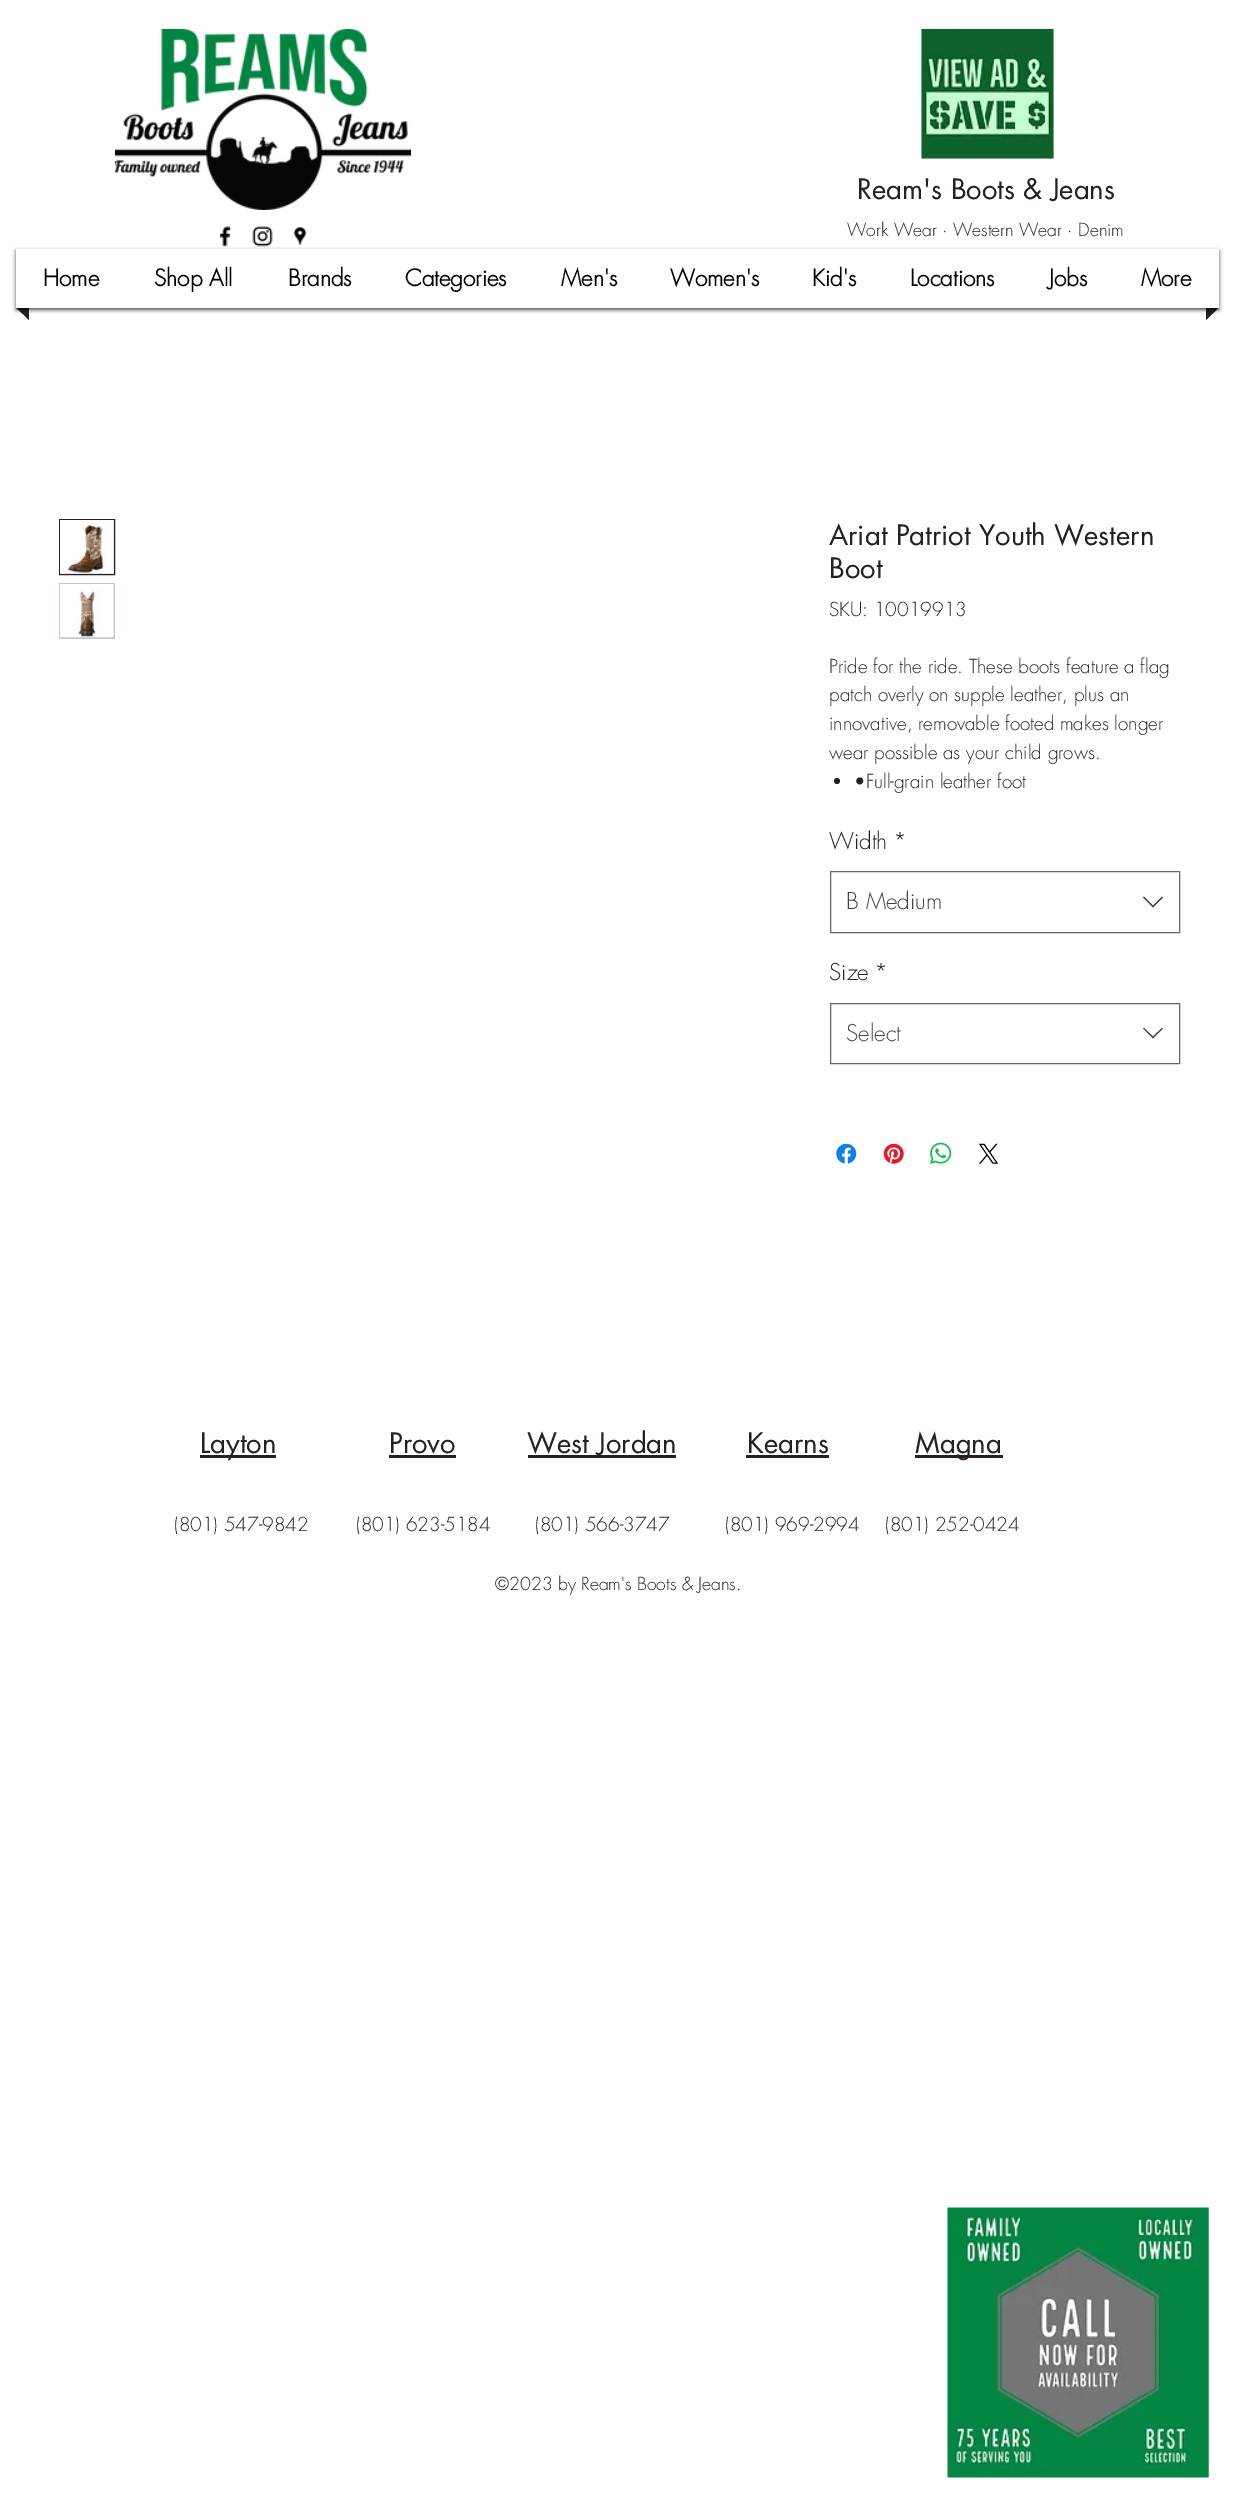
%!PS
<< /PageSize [1233 2502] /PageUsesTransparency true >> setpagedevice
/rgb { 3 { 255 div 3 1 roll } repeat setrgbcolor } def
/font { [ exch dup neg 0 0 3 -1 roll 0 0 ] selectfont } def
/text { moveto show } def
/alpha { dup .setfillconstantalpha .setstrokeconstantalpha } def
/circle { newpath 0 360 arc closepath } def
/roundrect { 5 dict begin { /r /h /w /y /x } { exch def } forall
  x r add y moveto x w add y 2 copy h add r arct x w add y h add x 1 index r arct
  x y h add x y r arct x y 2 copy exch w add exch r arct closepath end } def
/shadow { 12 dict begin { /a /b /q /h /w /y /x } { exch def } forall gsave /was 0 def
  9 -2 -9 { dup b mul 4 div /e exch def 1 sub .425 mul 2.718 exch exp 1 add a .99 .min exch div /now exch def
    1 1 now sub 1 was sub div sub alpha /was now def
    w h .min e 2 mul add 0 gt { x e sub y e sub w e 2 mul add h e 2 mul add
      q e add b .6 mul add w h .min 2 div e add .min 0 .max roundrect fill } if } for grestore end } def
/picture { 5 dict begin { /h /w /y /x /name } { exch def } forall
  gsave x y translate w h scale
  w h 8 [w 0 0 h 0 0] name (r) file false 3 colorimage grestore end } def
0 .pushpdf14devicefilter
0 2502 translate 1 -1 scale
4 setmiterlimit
255 255 255 rgb
0 0 1233 2502 rectfill
(img_01.rgb) 115 28 297 182 picture
(img_02.rgb) 921 28 133 131 picture
(img_03.rgb) 219 226 12 21 picture
(img_04.rgb) 252 226 21 21 picture
(img_05.rgb) 293 226 14 20 picture
39 33 30 rgb
16 307.5 moveto 13 0 rlineto 0 12.5 rlineto closepath fill
1206 307.5 moveto 13 0 rlineto -13 12.5 rlineto closepath fill
0 0 0 rgb
16 251 1203 59 0 2 0.7 shadow
255 255 255 rgb
16 249 1203 59 rectfill
207 197 193 rgb
59.5 519.5 moveto 55 0 rlineto 0 55 rlineto -55 0 rlineto closepath gsave fill grestore
39 33 30 rgb
stroke
(img_06.rgb) 60 520 54 54 picture
207 197 193 rgb
59 583 56 56 rectfill
(img_07.rgb) 60 584 54 54 picture
39 33 30 rgb
837 781 3 circle fill
102 102 102 rgb
830.5 871.5 349 61 rectstroke
68 68 68 rgb
1162 896.5 moveto 1 1 rlineto -10 10 rlineto -10 -10 rlineto 1 -1 rlineto 9 9 rlineto closepath eofill
102 102 102 rgb
830.5 1003.5 349 60 rectstroke
68 68 68 rgb
1162 1028 moveto 1 0.5 rlineto -10 10 rlineto -10 -10 rlineto 1 -0.5 rlineto 9 8.5 rlineto closepath eofill
(img_08.rgb) 836 1143 21 21 picture
(img_09.rgb) 883 1143 21 21 picture
(img_10.rgb) 930 1142 22 22 picture
(img_11.rgb) 978 1143 21 21 picture
(img_12.rgb) 947 2207 262 271 picture
39 33 30 rgb
200 1455 76 3 rectfill
389 1455 67 3 rectfill
528 1455 148 3 rectfill
746 1455 83 3 rectfill
915 1455 88 3 rectfill
/futura-Regular 27.5 font
(Ream's Boots & Jeans) 857 199 text
/futura-Light 17.5 font
(Work Wear · Western Wear · Denim) 847 236 text
/futura-Bold 22.5 font
0 0 0 rgb
(Home) 43 286 text
(Shop All) 154 286 text
(Brands) 288 286 text
(Categories) 405 286 text
(Men's) 561 286 text
(Women's) 670 286 text
(Kid's) 812 286 text
(Locations) 910 286 text
(Jobs) 1049 286 text
(More) 1141 286 text
/futura-Regular 27.5 font
39 33 30 rgb
(Ariat Patriot Youth Western) 829 545 text
(Boot) 829 578 text
/futura-Light 18.75 font
(SKU: 10019913) 829 616 text
(Pride for the ride. These boots feature a flag) 829 673 text
(patch overly on supple leather, plus an) 829 701 text
(innovative, removable footed makes longer) 829 730 text
(wear possible as your child grows.) 829 759 text
(•Full-grain leather foot) 854 788 text
/futura-Light 22.5 font
(Width) 829 849 text
(*) 893 849 text
68 68 68 rgb
(B Medium) 846 909 text
39 33 30 rgb
(Size) 829 980 text
(*) 874 980 text
68 68 68 rgb
(Select) 846 1041 text
/futura-Regular 27.5 font
39 33 30 rgb
(Layton) 200 1453 text
(Provo) 389 1453 text
(West Jordan) 527 1453 text
(Kearns) 747 1453 text
(Magna) 915 1453 text
/futura-Light 18.75 font
(\(801\) 547-9842) 174 1531 text
(\(801\) 623-5184) 356 1531 text
(\(801\) 566-3747) 535 1531 text
(\(801\) 969-2994) 725 1531 text
(\(801\) 252-0424) 885 1531 text
/futura-Light 17.5 font
(©2023 by Ream's Boots & Jeans.) 495 1590 text
.poppdf14devicefilter showpage
